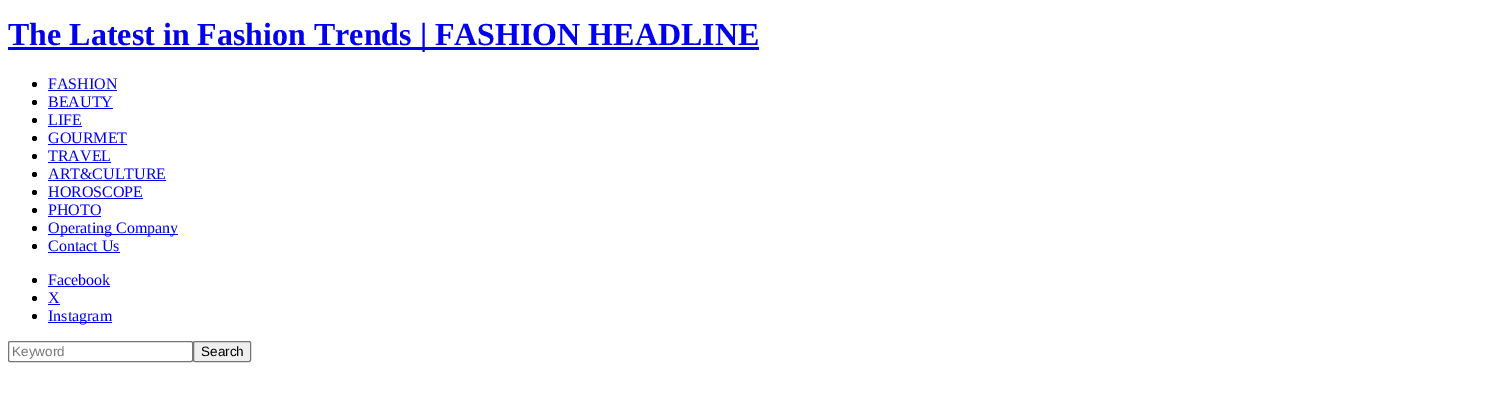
%!PS
<< /PageSize [1491 402] >> setpagedevice
/rgb { 3 { 255 div 3 1 roll } repeat setrgbcolor } def
/font { [ exch dup neg 0 0 3 -1 roll 0 0 ] selectfont } def
/text { moveto show } def
/circle { newpath 0 360 arc closepath } def
/roundrect { 5 dict begin { /r /h /w /y /x } { exch def } forall
  x r add y moveto x w add y 2 copy h add r arct x w add y h add x 1 index r arct
  x y h add x y r arct x y 2 copy exch w add exch r arct closepath end } def
0 402 translate 1 -1 scale
4 setmiterlimit
255 255 255 rgb
0 0 1491 402 rectfill
0 0 238 rgb
8 47 751 3 rectfill
0 0 0 rgb
34.5 84.5 2.5 circle fill
0 0 238 rgb
48 90 69 1 rectfill
0 0 0 rgb
34.5 102.5 2.5 circle fill
0 0 238 rgb
48 108 65 1 rectfill
0 0 0 rgb
34.5 120.5 2.5 circle fill
0 0 238 rgb
48 126 34 1 rectfill
0 0 0 rgb
34.5 138.5 2.5 circle fill
0 0 238 rgb
48 144 79 1 rectfill
0 0 0 rgb
34.5 156.5 2.5 circle fill
0 0 238 rgb
48 162 63 1 rectfill
0 0 0 rgb
34.5 174.5 2.5 circle fill
0 0 238 rgb
48 180 118 1 rectfill
0 0 0 rgb
34.5 192.5 2.5 circle fill
0 0 238 rgb
48 198 95 1 rectfill
0 0 0 rgb
34.5 210.5 2.5 circle fill
0 0 238 rgb
48 216 53 1 rectfill
0 0 0 rgb
34.5 228.5 2.5 circle fill
0 0 238 rgb
48 234 130 1 rectfill
0 0 0 rgb
34.5 246.5 2.5 circle fill
0 0 238 rgb
48 252 72 1 rectfill
0 0 0 rgb
34.5 280.5 2.5 circle fill
0 0 238 rgb
48 286 62 1 rectfill
0 0 0 rgb
34.5 298.5 2.5 circle fill
0 0 238 rgb
48 304 12 1 rectfill
0 0 0 rgb
34.5 316.5 2.5 circle fill
0 0 238 rgb
48 322 64 1 rectfill
118 118 118 rgb
8.5 341.5 184 20 1.5 roundrect stroke
239 239 239 rgb
193.5 341.5 57 20 1.5 roundrect gsave fill grestore
118 118 118 rgb
stroke
/LiberationSerif-Bold 32 font
0 0 238 rgb
(The Latest in Fashion Trends | FASHION HEADLINE) 8 45 text
/LiberationSerif-Regular 16 font
(FASHION) 48 89 text
(BEAUTY) 48 107 text
(LIFE) 48 125 text
(GOURMET) 48 143 text
(TRAVEL) 48 161 text
(ART&CULTURE) 48 179 text
(HOROSCOPE) 48 197 text
(PHOTO) 48 215 text
(Operating Company) 48 233 text
(Contact Us) 48 251 text
(Facebook) 48 285 text
(X) 48 303 text
(Instagram) 48 321 text
/LiberationSans-Regular 13.5 font
117 117 117 rgb
(Keyword) 12 356 text
0 0 0 rgb
(Search) 201 356 text
showpage
